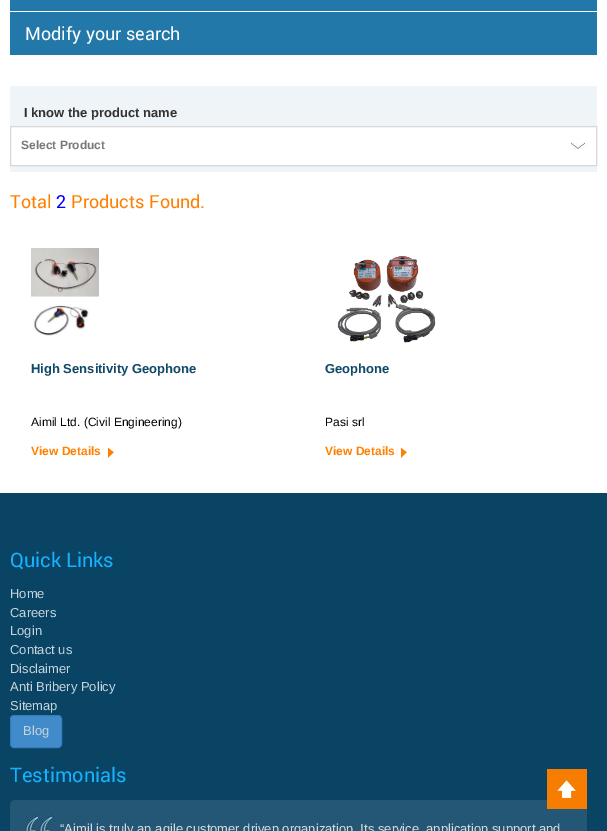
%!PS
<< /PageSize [607 831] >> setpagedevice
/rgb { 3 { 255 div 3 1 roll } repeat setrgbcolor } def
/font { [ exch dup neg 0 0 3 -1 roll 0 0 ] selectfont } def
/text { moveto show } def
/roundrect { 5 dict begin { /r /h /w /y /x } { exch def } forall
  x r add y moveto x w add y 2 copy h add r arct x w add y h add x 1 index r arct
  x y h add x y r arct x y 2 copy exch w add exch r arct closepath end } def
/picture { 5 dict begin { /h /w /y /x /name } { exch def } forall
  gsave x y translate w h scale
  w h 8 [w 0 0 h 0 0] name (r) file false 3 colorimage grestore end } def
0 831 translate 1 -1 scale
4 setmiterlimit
255 255 255 rgb
0 0 607 831 rectfill
34 120 169 rgb
10 0 587 11 rectfill
10 12 587 43 rectfill
238 244 247 rgb
10 86 587 86 1 roundrect fill
255 255 255 rgb
11 127 585 38 rectfill
(img_01.rgb) 571 142 16 7 picture
215 215 215 rgb
10.5 126.5 586 39 rectstroke
(img_02.rgb) 31 248 68 88 picture
(img_03.rgb) 108 447 6 11 picture
(img_04.rgb) 329 256 107 92 picture
(img_03.rgb) 401 447 6 11 picture
10 68 101 rgb
0 493 607 338 rectfill
66 139 202 rgb
10.5 715.5 51 32 3.5 roundrect gsave fill grestore
53 126 189 rgb
stroke
35 87 117 rgb
10 800 577 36 5 roundrect fill
(img_05.rgb) 25 815 30 16 picture
(img_06.rgb) 547 769 40 40 picture
/Roboto-Regular 18 font
255 255 255 rgb
(Modify your search) 25 40 text
/LiberationSans-Bold 13 font
51 51 51 rgb
(I know the product name) 24 117 text
/LiberationSans-Bold 12 font
121 121 121 rgb
(Select Product) 21 149 text
/Roboto-Regular 18 font
255 128 0 rgb
(Total) 10 208 text
0 0 255 rgb
(2) 56 208 text
255 128 0 rgb
(Products Found.) 71 208 text
/LiberationSans-Bold 13 font
17 73 105 rgb
(High Sensitivity Geophone) 31 373 text
/LiberationSans-Regular 12 font
0 0 0 rgb
(Aimil Ltd. \(Civil Engineering\)) 31 426 text
/LiberationSans-Bold 12 font
255 128 0 rgb
(View Details) 31 455 text
/LiberationSans-Bold 13 font
17 73 105 rgb
(Geophone) 325 373 text
/LiberationSans-Regular 12 font
0 0 0 rgb
(Pasi srl) 325 426 text
/LiberationSans-Bold 12 font
255 128 0 rgb
(View Details) 325 455 text
/Roboto-Regular 20 font
23 178 255 rgb
(Quick Links) 10 567 text
/LiberationSans-Regular 13 font
198 212 219 rgb
(Home) 10 598 text
(Careers) 10 617 text
(Login) 10 635 text
(Contact us) 10 654 text
(Disclaimer) 10 673 text
(Anti Bribery Policy) 10 691 text
(Sitemap) 10 710 text
(Blog) 23 735 text
/Roboto-Regular 20 font
23 178 255 rgb
(Testimonials) 10 782 text
/LiberationSans-Regular 13 font
211 222 227 rgb
(“Aimil is truly an agile customer driven organization. Its service, application support and) 60 833 text
showpage
